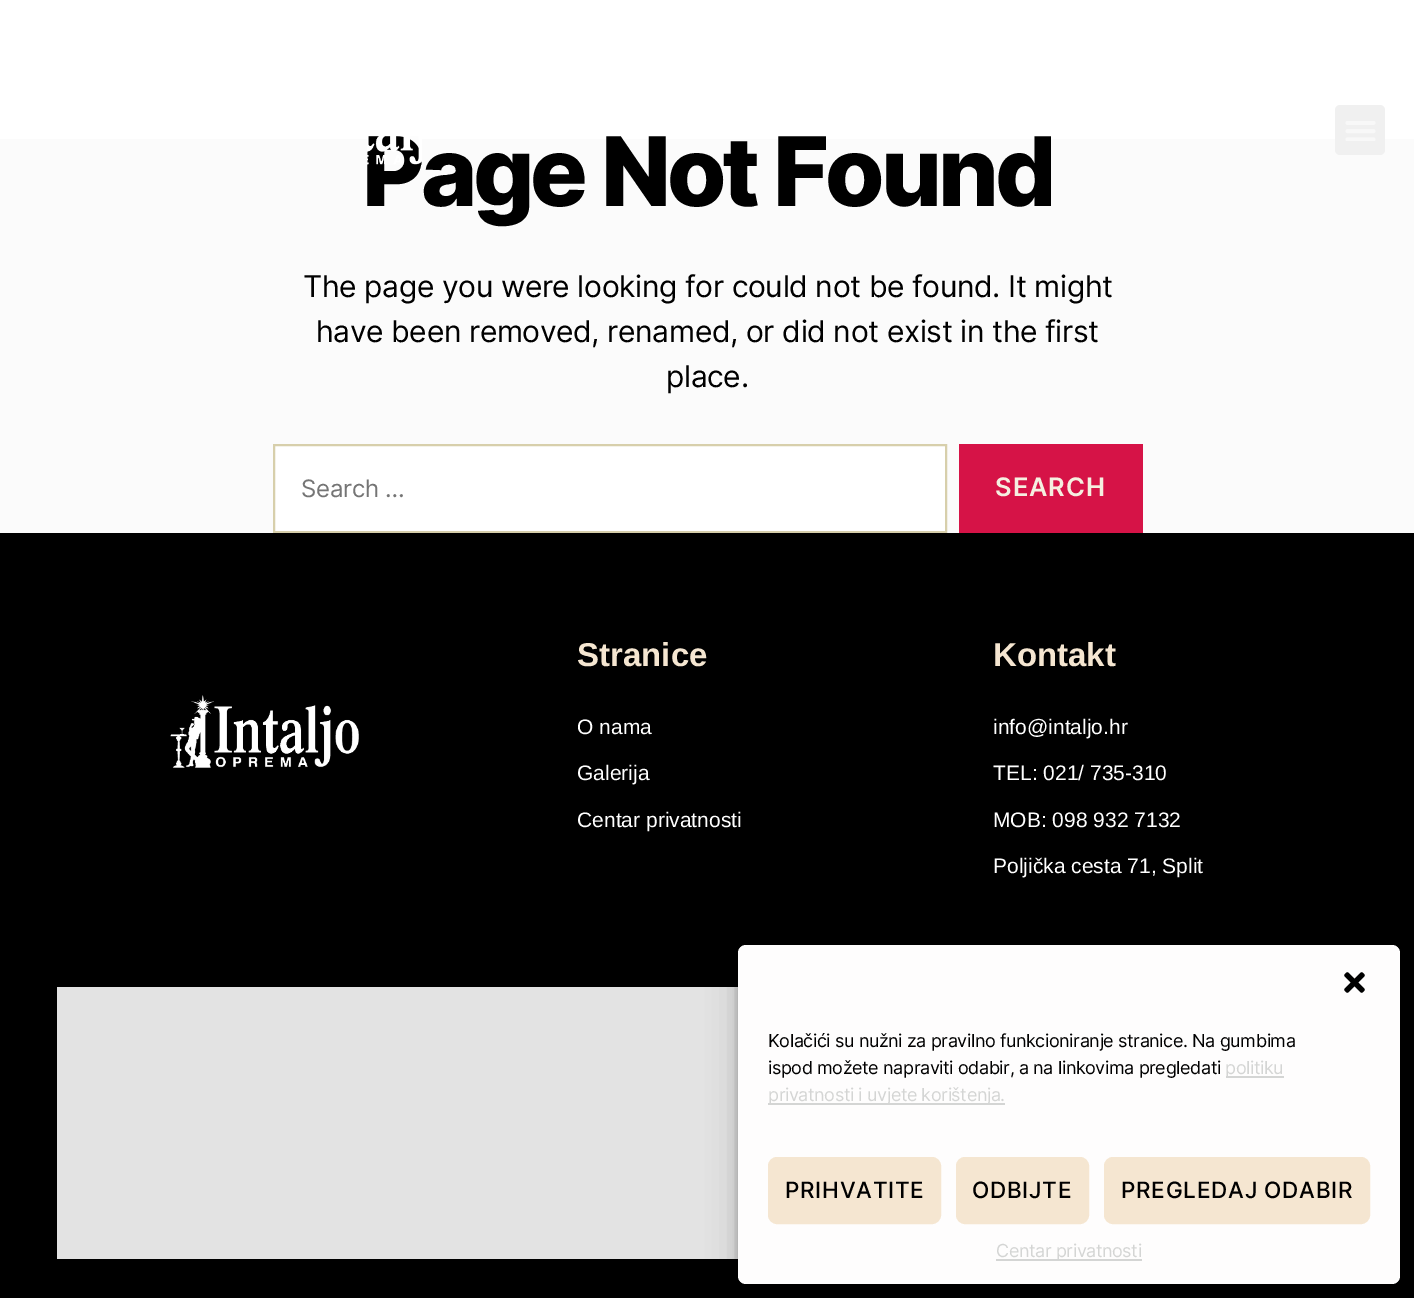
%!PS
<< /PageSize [1414 1298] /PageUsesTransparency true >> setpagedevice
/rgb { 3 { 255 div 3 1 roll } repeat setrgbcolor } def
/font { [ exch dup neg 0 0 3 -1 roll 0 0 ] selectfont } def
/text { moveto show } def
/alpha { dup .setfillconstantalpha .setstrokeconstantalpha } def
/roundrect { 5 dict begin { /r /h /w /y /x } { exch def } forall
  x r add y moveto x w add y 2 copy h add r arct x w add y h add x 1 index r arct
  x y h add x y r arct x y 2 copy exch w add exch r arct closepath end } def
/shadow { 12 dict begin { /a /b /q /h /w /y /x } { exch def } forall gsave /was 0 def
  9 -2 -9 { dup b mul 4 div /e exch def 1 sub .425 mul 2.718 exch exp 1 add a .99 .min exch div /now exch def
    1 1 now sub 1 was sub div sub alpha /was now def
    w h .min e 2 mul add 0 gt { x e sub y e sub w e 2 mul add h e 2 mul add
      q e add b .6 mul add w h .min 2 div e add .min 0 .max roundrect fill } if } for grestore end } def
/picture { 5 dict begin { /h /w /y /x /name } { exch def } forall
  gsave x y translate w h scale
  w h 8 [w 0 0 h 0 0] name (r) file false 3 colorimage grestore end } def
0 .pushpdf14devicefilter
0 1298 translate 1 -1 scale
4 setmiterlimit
255 255 255 rgb
0 0 1414 1298 rectfill
gsave 0 139 moveto 1414 0 rlineto 0 394 rlineto -1414 0 rlineto closepath clip newpath
<< /ShadingType 2 /ColorSpace /DeviceRGB /Coords [707 0 707 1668] /Extend [true true] /Function << /FunctionType 2 /Domain [0 1] /C0 [0.992 0.992 0.992] /C1 [0.969 0.969 0.969] /N 1 >> >> shfill grestore
240 240 240 rgb
1335 105 50 50 5 roundrect fill
(img_02.rgb) 1345 121 31 20 picture
255 255 255 rgb
274 445 moveto 672 0 rlineto 0 87 rlineto -672 0 rlineto closepath gsave fill grestore
215 207 171 rgb
2 setlinewidth
stroke
214 19 71 rgb
959 444 184 89 rectfill
0 0 0 rgb
0 533 1414 765 rectfill
(img_03.rgb) 170 695 189 73 picture
227 227 227 rgb
57 987 681 272 rectfill
0 0 0 rgb
738 954 662 339 8 4.5 0.23 shadow
738 960 662 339 8 15 0.19 shadow
254 253 253 rgb
738 945 662 339 8 roundrect fill
(img_04.rgb) 1344 972 21 21 picture
212 213 212 rgb
1226 1076 58 2 rectfill
768 1103 237 2 rectfill
245 230 209 rgb
769 1158 171 65 8 roundrect gsave fill grestore
stroke
957 1158 131 65 8 roundrect gsave fill grestore
stroke
1105 1158 264 65 8 roundrect gsave fill grestore
stroke
212 213 212 rgb
996 1259 146 2 rectfill
/Inter-ExtraBold 96 font
0 0 0 rgb
362 206 moveto -4 0 (Page Not Found) ashow
(img_01.rgb) 367 136 55 29 picture
/Inter-Regular 30 font
303 297 moveto -0.4 0 (The page you were looking for could not be found. It might) ashow
316 342 moveto -0.4 0 (have been removed, renamed, or did not exist in the first) ashow
666 387 moveto -0.4 0 (place.) ashow
/Inter-Regular 24 font
117 117 117 rgb
301 497 moveto -0.25 0 (Search …) ashow
/Inter-SemiBold 25.5 font
245 239 224 rgb
995 496 moveto 1 0 (SEARCH) ashow
/LiberationSans-Bold 33 font
245 230 209 rgb
(Stranice) 577 666 text
/LiberationSans-Regular 21 font
255 255 255 rgb
(O nama) 577 734 text
(Galerija) 577 780 text
(Centar privatnosti) 577 827 text
/LiberationSans-Bold 33 font
245 230 209 rgb
(Kontakt) 993 666 text
/LiberationSans-Regular 21 font
255 255 255 rgb
(info@intaljo.hr) 993 734 text
(TEL: 021/ 735-310) 993 780 text
(MOB: 098 932 7132) 993 827 text
(Poljička cesta 71, Split) 993 873 text
/Inter-Regular 18 font
0 0 0 rgb
768 1047 moveto -0.4 0 (Kolačići su nužni za pravilno funkcioniranje stranice. Na gumbima) ashow
768 1074 moveto -0.4 0 (ispod možete napraviti odabir, a na linkovima pregledati) ashow
212 213 212 rgb
1225 1074 moveto -0.4 0 (politiku) ashow
768 1101 moveto -0.4 0 (privatnosti i uvjete korištenja.) ashow
/Inter-Medium 22.5 font
0 0 0 rgb
785 1198 moveto 0.75 0 (PRIHVATITE) ashow
972 1198 moveto 0.75 0 (ODBIJTE) ashow
1121 1198 moveto 0.75 0 (PREGLEDAJ ODABIR) ashow
/Inter-Regular 18 font
212 213 212 rgb
996 1257 moveto -0.4 0 (Centar privatnosti) ashow
.poppdf14devicefilter showpage
